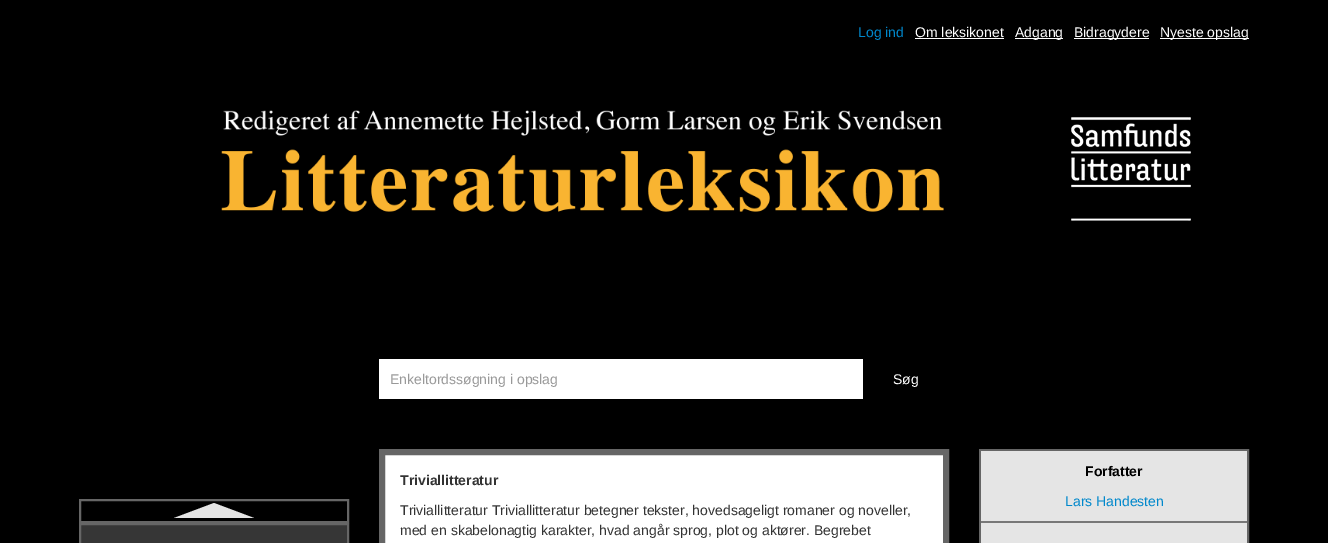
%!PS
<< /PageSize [1328 543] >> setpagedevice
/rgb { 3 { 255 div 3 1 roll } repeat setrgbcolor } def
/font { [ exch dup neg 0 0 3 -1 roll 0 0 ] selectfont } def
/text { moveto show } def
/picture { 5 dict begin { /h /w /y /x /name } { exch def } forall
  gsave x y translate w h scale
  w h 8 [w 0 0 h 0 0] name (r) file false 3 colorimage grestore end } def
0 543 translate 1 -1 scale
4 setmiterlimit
0 0 0 rgb
0 0 1328 543 rectfill
255 255 255 rgb
915 38 89 1 rectfill
1015 38 48 1 rectfill
1074 38 75 1 rectfill
1160 38 89 1 rectfill
(img_01.rgb) 221 110 723 102 picture
(img_02.rgb) 1071 117 120 104 picture
379 359 484 40 rectfill
102 102 102 rgb
2 setlinewidth
80 500 268 22 rectstroke
228 228 228 rgb
254 518 moveto -80 0 rlineto 40 -15 rlineto closepath fill
54 54 54 rgb
80 524 moveto 268 0 rlineto 0 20 rlineto -268 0 rlineto closepath gsave fill grestore
102 102 102 rgb
stroke
255 255 255 rgb
382 452 moveto 564 0 rlineto 0 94 rlineto -564 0 rlineto closepath gsave fill grestore
102 102 102 rgb
6 setlinewidth
stroke
2 setlinewidth
980 450 268 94 rectstroke
229 229 229 rgb
981 451 266 70 rectfill
981 523 266 20 rectfill
120 120 120 rgb
981 521 266 2 rectfill
/LiberationSans-Regular 14 font
0 136 204 rgb
(Log ind) 858 37 text
255 255 255 rgb
(Om leksikonet) 915 37 text
(Adgang) 1015 37 text
(Bidragydere) 1074 37 text
(Nyeste opslag) 1160 37 text
153 153 153 rgb
(Enkeltordssøgning i opslag) 390 384 text
255 255 255 rgb
(Søg) 893 384 text
/LiberationSans-Bold 14 font
51 51 51 rgb
(Triviallitteratur) 400 485 text
/LiberationSans-Regular 14 font
(Triviallitteratur Triviallitteratur betegner tekster, hovedsageligt romaner og noveller,) 400 515 text
(med en skabelonagtig karakter, hvad angår sprog, plot og aktører. Begrebet) 400 535 text
/LiberationSans-Bold 14 font
0 0 0 rgb
(Forfatter) 1085 476 text
/LiberationSans-Regular 14 font
0 136 204 rgb
(Lars Handesten) 1065 506 text
showpage
